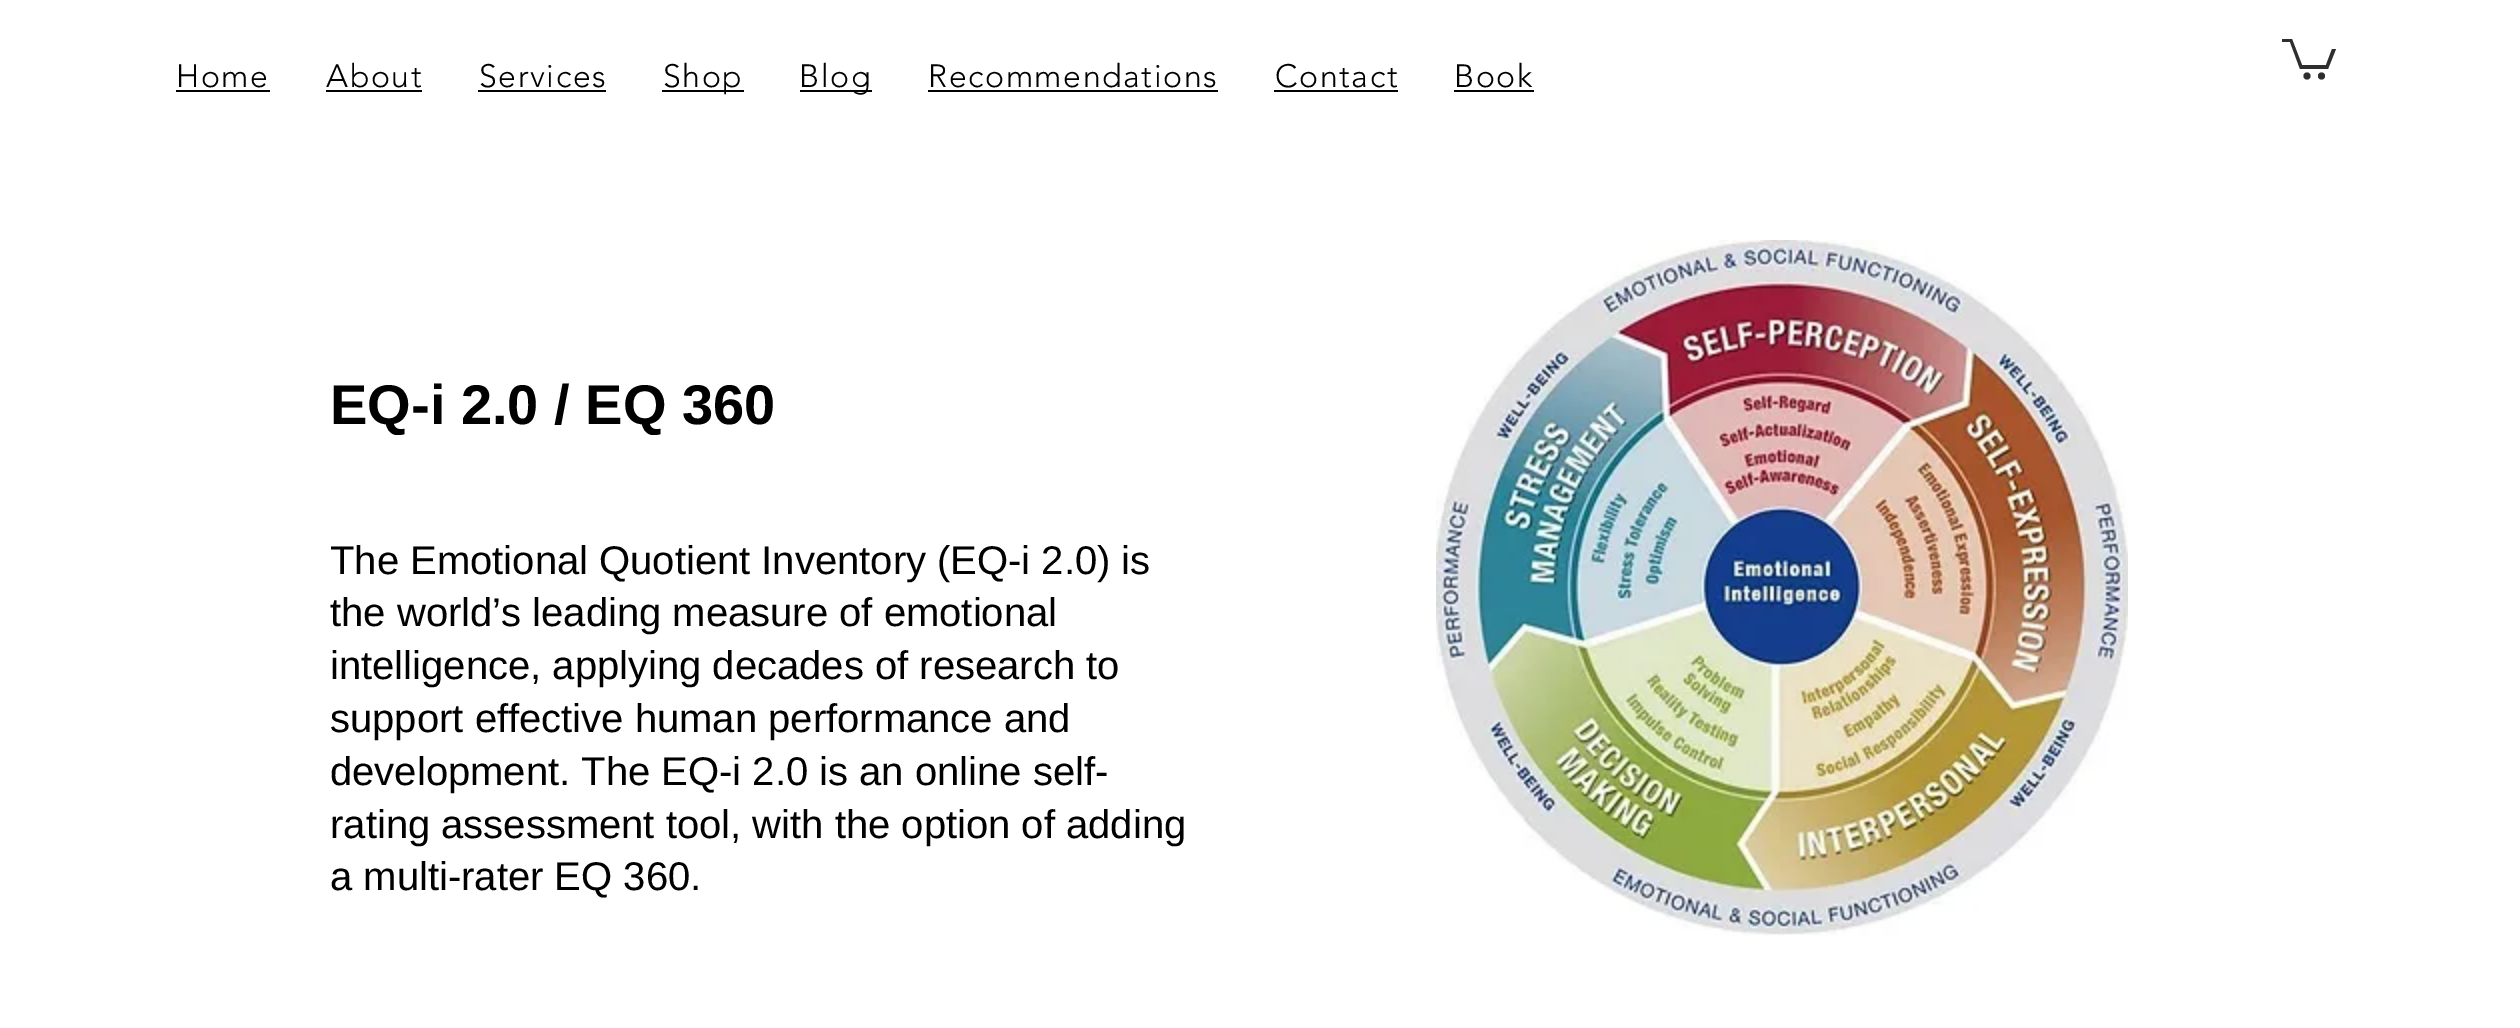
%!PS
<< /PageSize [2520 1028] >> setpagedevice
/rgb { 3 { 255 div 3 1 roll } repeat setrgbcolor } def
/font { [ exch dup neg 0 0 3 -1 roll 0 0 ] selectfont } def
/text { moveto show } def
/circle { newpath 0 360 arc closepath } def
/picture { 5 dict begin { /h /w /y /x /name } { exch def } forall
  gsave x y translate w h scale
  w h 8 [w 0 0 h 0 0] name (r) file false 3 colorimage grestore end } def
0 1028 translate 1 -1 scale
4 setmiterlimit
255 255 255 rgb
0 0 2520 1028 rectfill
0 0 0 rgb
176 90 94 2 rectfill
326 90 96 2 rectfill
478 90 128 2 rectfill
662 90 82 2 rectfill
800 90 72 2 rectfill
928 90 290 2 rectfill
1274 90 124 2 rectfill
1454 90 80 2 rectfill
47 46 46 rgb
2336 49 moveto -8 20 rlineto -28 0 rlineto -10 -27 rlineto -8 0 rlineto 0 -3 rlineto 10 0 rlineto 10 26 rlineto 24 0 rlineto 6 -16 rlineto fill
2321.5 76 3.5 circle fill
2307 76 3.5 circle fill
(img_01.rgb) 1436 240 692 696 picture
/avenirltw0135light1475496-Light 32 font
0 0 0 rgb
176 87 moveto 1.6 0 (Home) ashow
326 87 moveto 1.6 0 (About) ashow
479 87 moveto 1.6 0 (Services) ashow
663 87 moveto 1.6 0 (Shop) ashow
799 87 moveto 1.6 0 (Blog) ashow
928 87 moveto 1.6 0 (Recommendations) ashow
1275 87 moveto 1.6 0 (Contact) ashow
1454 87 moveto 1.6 0 (Book) ashow
/LiberationSans-Bold 56 font
(EQ-i 2.0 / EQ 360) 330 424 text
/Arimo-Regular 40 font
(The Emotional Quotient Inventory \(EQ-i 2.0\) is) 330 574 text
(the world’s leading measure of emotional) 330 626 text
(intelligence, applying decades of research to) 330 679 text
(support effective human performance and) 330 732 text
(development. The EQ-i 2.0 is an online self-) 330 785 text
(rating assessment tool, with the option of adding) 330 838 text
(a multi-rater EQ 360.) 330 890 text
showpage
